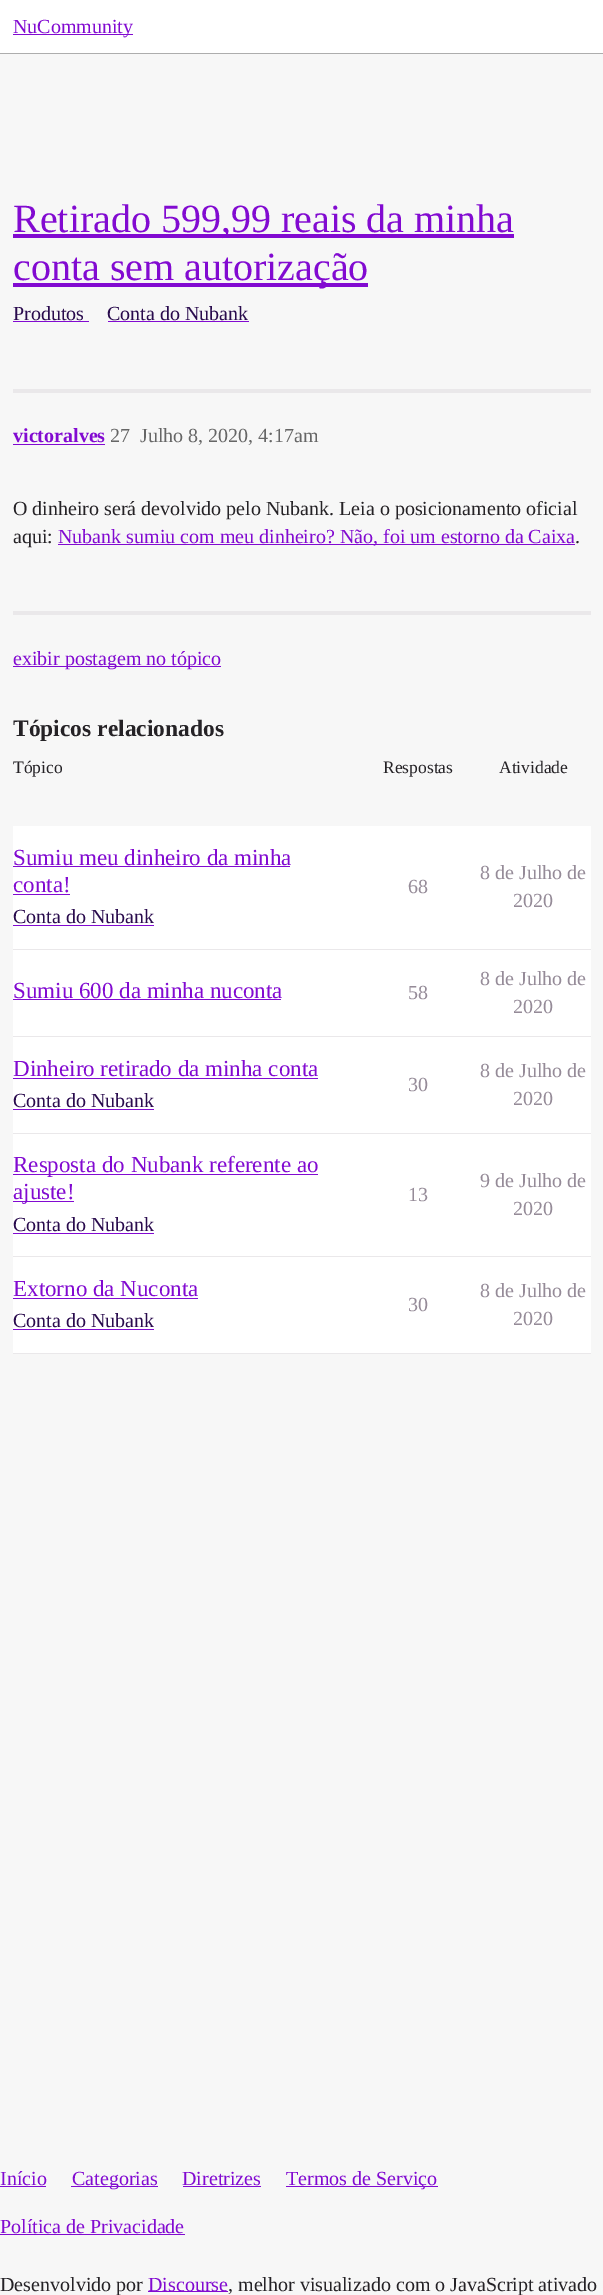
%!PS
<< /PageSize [603 2295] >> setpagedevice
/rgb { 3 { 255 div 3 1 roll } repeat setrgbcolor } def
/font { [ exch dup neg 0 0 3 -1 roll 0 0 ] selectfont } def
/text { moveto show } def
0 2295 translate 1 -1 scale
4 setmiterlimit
247 247 247 rgb
0 0 603 2295 rectfill
255 255 255 rgb
0 0 603 53 rectfill
173 173 173 rgb
0 53 603 1 rectfill
130 10 209 rgb
13 34 120 1 rectfill
13 234 501 4 rectfill
13 283 355 4 rectfill
13 321 76 1 rectfill
108 321 141 1 rectfill
234 232 234 rgb
13 389 578 4 rectfill
130 10 209 rgb
13 444 92 1 rectfill
58 544 517 1 rectfill
234 232 234 rgb
13 611 578 4 rectfill
130 10 209 rgb
13 666 208 1 rectfill
255 255 255 rgb
13 826 578 123 rectfill
234 232 234 rgb
13 949 578 1 rectfill
130 10 209 rgb
13 866 277 1 rectfill
13 894 57 1 rectfill
13 925 141 1 rectfill
255 255 255 rgb
13 950 578 86 rectfill
234 232 234 rgb
13 1036 578 1 rectfill
130 10 209 rgb
13 999 268 1 rectfill
255 255 255 rgb
13 1037 578 96 rectfill
234 232 234 rgb
13 1133 578 1 rectfill
130 10 209 rgb
13 1078 305 1 rectfill
13 1109 141 1 rectfill
255 255 255 rgb
13 1134 578 122 rectfill
234 232 234 rgb
13 1256 578 1 rectfill
130 10 209 rgb
13 1174 305 1 rectfill
13 1201 61 1 rectfill
13 1233 141 1 rectfill
255 255 255 rgb
13 1257 578 96 rectfill
234 232 234 rgb
13 1353 578 1 rectfill
130 10 209 rgb
13 1298 185 1 rectfill
13 1329 141 1 rectfill
0 2186 46 1 rectfill
71 2186 87 1 rectfill
183 2186 78 1 rectfill
286 2186 152 1 rectfill
0 2234 185 1 rectfill
148 2291 80 1 rectfill
/LiberationSerif-Regular 20 font
(NuCommunity) 13 33 text
/LiberationSerif-Regular 40 font
(Retirado 599,99 reais da minha) 13 232 text
(conta sem autorização) 13 280 text
/LiberationSerif-Regular 20 font
41 11 77 rgb
(Produtos) 13 320 text
(Conta do Nubank) 107 320 text
/LiberationSerif-Bold 20 font
130 10 209 rgb
(victoralves) 13 442 text
/LiberationSerif-Regular 20 font
102 102 102 rgb
(27) 110 442 text
(Julho 8, 2020, 4:17am) 140 442 text
37 34 38 rgb
(O dinheiro será devolvido pelo Nubank. Leia o posicionamento oficial) 13 515 text
(aqui:) 13 543 text
130 10 209 rgb
(Nubank sumiu com meu dinheiro? Não, foi um estorno da Caixa) 58 543 text
37 34 38 rgb
(.) 575 543 text
130 10 209 rgb
(exibir postagem no tópico) 13 665 text
/LiberationSerif-Bold 23.5 font
37 34 38 rgb
(Tópicos relacionados) 13 736 text
gsave
13 755 578 599 rectclip
/LiberationSerif-Regular 17.5 font
(Tópico) 13 773 text
grestore
/LiberationSerif-Regular 17.5 font
(Respostas) 383 773 text
(Atividade) 499 773 text
/LiberationSerif-Regular 23 font
130 10 209 rgb
(Sumiu meu dinheiro da minha) 13 865 text
(conta!) 13 892 text
/LiberationSerif-Regular 20 font
41 11 77 rgb
(Conta do Nubank) 13 923 text
149 139 152 rgb
(68) 408 893 text
(8 de Julho de) 480 879 text
(2020) 513 907 text
/LiberationSerif-Regular 23 font
130 10 209 rgb
(Sumiu 600 da minha nuconta) 13 998 text
/LiberationSerif-Regular 20 font
149 139 152 rgb
(58) 408 999 text
(8 de Julho de) 480 985 text
(2020) 513 1013 text
/LiberationSerif-Regular 23 font
130 10 209 rgb
(Dinheiro retirado da minha conta) 13 1076 text
/LiberationSerif-Regular 20 font
41 11 77 rgb
(Conta do Nubank) 13 1107 text
149 139 152 rgb
(30) 408 1091 text
(8 de Julho de) 480 1077 text
(2020) 513 1105 text
/LiberationSerif-Regular 23 font
130 10 209 rgb
(Resposta do Nubank referente ao) 13 1172 text
(ajuste!) 13 1199 text
/LiberationSerif-Regular 20 font
41 11 77 rgb
(Conta do Nubank) 13 1231 text
149 139 152 rgb
(13) 408 1201 text
(9 de Julho de) 480 1187 text
(2020) 513 1215 text
/LiberationSerif-Regular 23 font
130 10 209 rgb
(Extorno da Nuconta) 13 1296 text
/LiberationSerif-Regular 20 font
41 11 77 rgb
(Conta do Nubank) 13 1327 text
149 139 152 rgb
(30) 408 1311 text
(8 de Julho de) 480 1297 text
(2020) 513 1325 text
130 10 209 rgb
(Início) 0 2185 text
(Categorias) 72 2185 text
(Diretrizes) 182 2185 text
(Termos de Serviço) 286 2185 text
(Política de Privacidade) 0 2233 text
37 34 38 rgb
(Desenvolvido por) 0 2291 text
130 10 209 rgb
(Discourse) 148 2291 text
37 34 38 rgb
(, melhor visualizado com o JavaScript ativado) 228 2291 text
showpage
